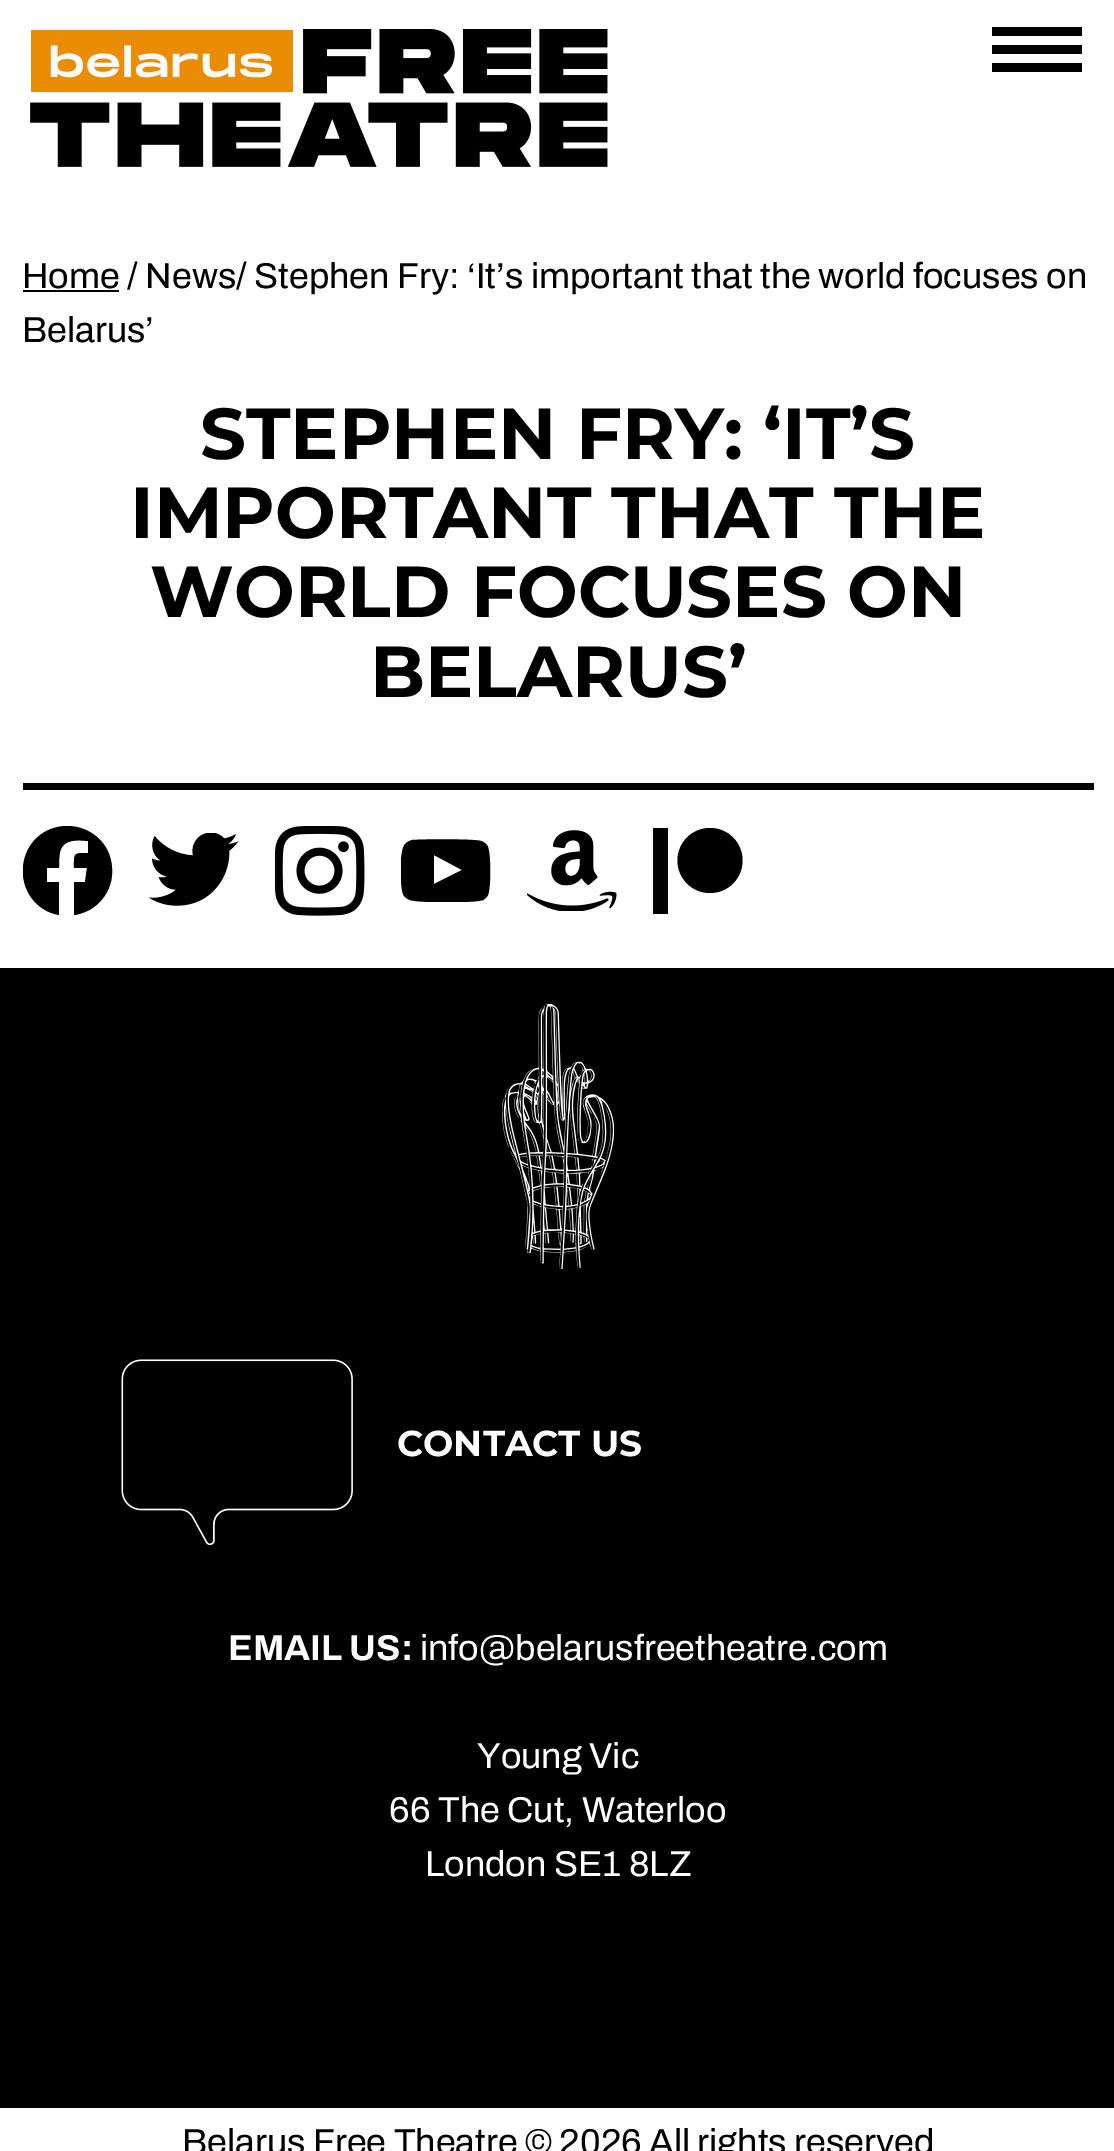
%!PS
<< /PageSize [1114 2151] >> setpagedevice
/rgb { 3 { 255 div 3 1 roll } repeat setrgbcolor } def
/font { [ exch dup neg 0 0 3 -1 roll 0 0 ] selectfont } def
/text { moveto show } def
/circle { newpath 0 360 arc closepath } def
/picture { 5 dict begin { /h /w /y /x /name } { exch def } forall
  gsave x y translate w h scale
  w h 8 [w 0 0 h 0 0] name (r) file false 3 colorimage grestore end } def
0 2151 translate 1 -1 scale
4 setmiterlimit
255 255 255 rgb
0 0 1114 2151 rectfill
(img_01.rgb) 30 29 578 138 picture
0 0 0 rgb
992 63 90 9 rectfill
992 27 90 9 rectfill
992 45 90 9 rectfill
23 290 96 2 rectfill
23 783 1071 7 rectfill
gsave
23 826 90 90 rectclip
67 826 moveto -23 0 -42 17 -44 41 rcurveto -2 23 13 44 36 48 rcurveto 0 -33 rlineto -12 0 rlineto 0 -14 rlineto 12 0 rlineto 0 -5 0 -11 1 -16 rcurveto 3 -13 17 -12 28 -11 rcurveto 0 12 rlineto -15 0 -14 0 -14 15 rcurveto 13 0 rlineto -2 14 rlineto -11 0 rlineto 0 33 rlineto 23 -3 40 -24 38 -47 rcurveto -1 -24 -21 -42 -45 -42 rcurveto eofill
grestore
(img_02.rgb) 149 833 90 73 picture
(img_03.rgb) 275 826 90 90 picture
gsave
401 839 90 63 rectclip
410 900 moveto -3 -1 -6 -3 -7 -6 rcurveto -3 -8 -4 -43 2 -50 rcurveto 2 -2 4 -3 7 -4 rcurveto 16 -1 64 -1 69 1 rcurveto 3 1 6 3 7 6 rcurveto 3 9 3 40 0 48 rcurveto -1 2 -3 4 -5 5 rcurveto -6 3 -66 3 -73 0 rcurveto 434 884 moveto 28 -14 rlineto -28 -15 rlineto closepath eofill
grestore
(img_04.rgb) 527 830 90 81 picture
653 828 15 86 rectfill
710 860.5 32.5 circle fill
0 968 1114 1140 rectfill
(img_05.rgb) 502 1004 112 265 picture
(img_06.rgb) 121 1359 232 187 picture
/Archivo-Regular 36 font
(Home / News/ Stephen Fry: ‘It’s important that the world focuses on) 22 288 text
(Belarus’) 22 342 text
/Montserrat-Bold 72 font
(STEPHEN FRY: ‘IT’S) 200 459 text
(IMPORTANT THAT THE) 130 538 text
(WORLD FOCUSES ON) 150 617 text
(BELARUS’) 370 697 text
/Montserrat-Bold 36 font
255 255 255 rgb
(CONTACT US) 397 1456 text
/Archivo-Bold 36 font
(EMAIL US:) 228 1660 text
/Archivo-Regular 36 font
(info@belarusfreetheatre.com) 420 1660 text
(Young Vic) 477 1768 text
(66 The Cut, Waterloo) 389 1822 text
(London SE1 8LZ) 425 1876 text
0 0 0 rgb
(Belarus Free Theatre © 2026 All rights reserved) 182 2154 text
showpage
